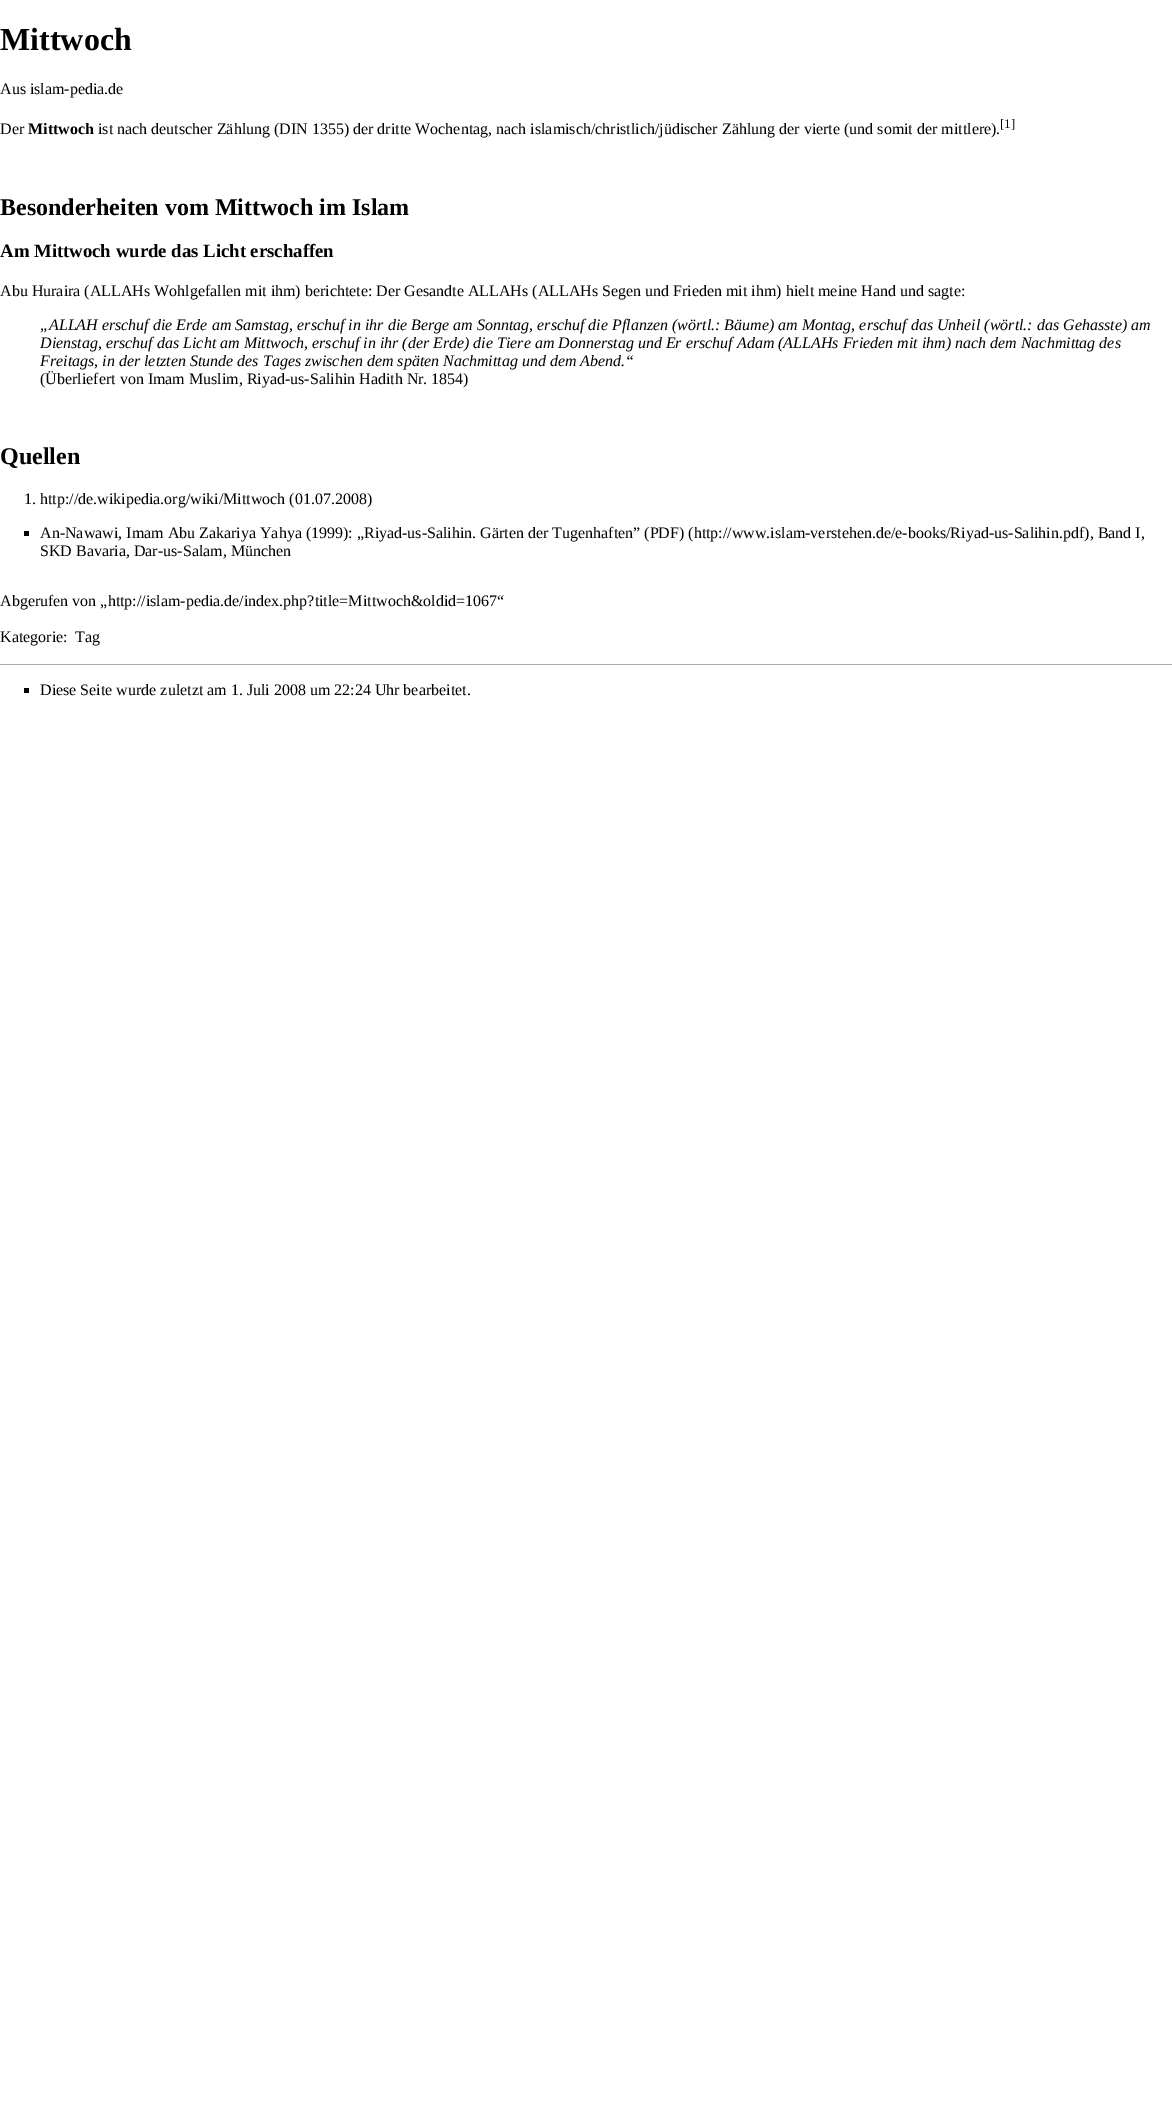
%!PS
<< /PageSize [1172 2102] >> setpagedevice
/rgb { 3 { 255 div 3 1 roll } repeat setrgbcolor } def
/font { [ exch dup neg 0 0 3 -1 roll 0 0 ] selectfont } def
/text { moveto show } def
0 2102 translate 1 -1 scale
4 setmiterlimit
255 255 255 rgb
0 0 1172 2102 rectfill
0 0 0 rgb
24 531 5 5 rectfill
170 170 170 rgb
0 664 1172 1 rectfill
0 0 0 rgb
24 688 5 5 rectfill
/LiberationSerif-Bold 32 font
(Mittwoch) 0 50 text
/LiberationSerif-Regular 16 font
(Aus islam-pedia.de) 0 94 text
(Der) 0 134 text
/LiberationSerif-Bold 16 font
(Mittwoch) 28 134 text
/LiberationSerif-Regular 16 font
(ist nach deutscher Zählung \(DIN 1355\) der dritte Wochentag, nach islamisch/christlich/jüdischer Zählung der vierte \(und somit der mittlere\).) 98 134 text
/LiberationSerif-Regular 13 font
([1]) 1000 128 text
/LiberationSerif-Bold 24 font
(Besonderheiten vom Mittwoch im Islam) 0 215 text
/LiberationSerif-Bold 18.75 font
(Am Mittwoch wurde das Licht erschaffen) 0 257 text
/LiberationSerif-Regular 16 font
(Abu Huraira \(ALLAHs Wohlgefallen mit ihm\) berichtete: Der Gesandte ALLAHs \(ALLAHs Segen und Frieden mit ihm\) hielt meine Hand und sagte:) 0 296 text
/LiberationSerif-Italic 16 font
(„ALLAH erschuf die Erde am Samstag, erschuf in ihr die Berge am Sonntag, erschuf die Pflanzen \(wörtl.: Bäume\) am Montag, erschuf das Unheil \(wörtl.: das Gehasste\) am) 40 330 text
(Dienstag, erschuf das Licht am Mittwoch, erschuf in ihr \(der Erde\) die Tiere am Donnerstag und Er erschuf Adam \(ALLAHs Frieden mit ihm\) nach dem Nachmittag des) 40 348 text
(Freitags, in der letzten Stunde des Tages zwischen dem späten Nachmittag und dem Abend.“) 40 366 text
/LiberationSerif-Regular 16 font
(\(Überliefert von Imam Muslim, Riyad-us-Salihin Hadith Nr. 1854\)) 40 384 text
/LiberationSerif-Bold 24 font
(Quellen) 0 464 text
/LiberationSerif-Regular 16 font
(1. http://de.wikipedia.org/wiki/Mittwoch \(01.07.2008\)) 24 504 text
(An-Nawawi, Imam Abu Zakariya Yahya \(1999\): „Riyad-us-Salihin. Gärten der Tugenhaften” \(PDF\) \(http://www.islam-verstehen.de/e-books/Riyad-us-Salihin.pdf\), Band I,) 40 538 text
(SKD Bavaria, Dar-us-Salam, München) 40 556 text
(Abgerufen von „http://islam-pedia.de/index.php?title=Mittwoch&oldid=1067“) 0 606 text
(Kategorie:) 0 642 text
(Tag) 75 642 text
(Diese Seite wurde zuletzt am 1. Juli 2008 um 22:24 Uhr bearbeitet.) 40 695 text
showpage
